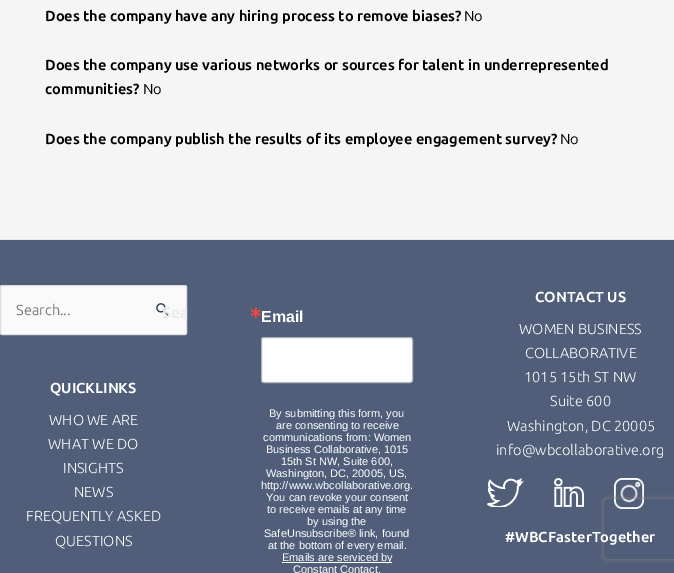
%!PS
<< /PageSize [674 573] /PageUsesTransparency true >> setpagedevice
/rgb { 3 { 255 div 3 1 roll } repeat setrgbcolor } def
/font { [ exch dup neg 0 0 3 -1 roll 0 0 ] selectfont } def
/text { moveto show } def
/alpha { dup .setfillconstantalpha .setstrokeconstantalpha } def
/roundrect { 5 dict begin { /r /h /w /y /x } { exch def } forall
  x r add y moveto x w add y 2 copy h add r arct x w add y h add x 1 index r arct
  x y h add x y r arct x y 2 copy exch w add exch r arct closepath end } def
/shadow { 12 dict begin { /a /b /q /h /w /y /x } { exch def } forall gsave /was 0 def
  9 -2 -9 { dup b mul 4 div /e exch def 1 sub .425 mul 2.718 exch exp 1 add a .99 .min exch div /now exch def
    1 1 now sub 1 was sub div sub alpha /was now def
    w h .min e 2 mul add 0 gt { x e sub y e sub w e 2 mul add h e 2 mul add
      q e add b .6 mul add w h .min 2 div e add .min 0 .max roundrect fill } if } for grestore end } def
/picture { 5 dict begin { /h /w /y /x /name } { exch def } forall
  gsave x y translate w h scale
  w h 8 [w 0 0 h 0 0] name (r) file false 3 colorimage grestore end } def
0 .pushpdf14devicefilter
0 573 translate 1 -1 scale
4 setmiterlimit
245 245 245 rgb
0 0 674 573 rectfill
80 94 121 rgb
0 240 674 333 rectfill
226 232 240 rgb
0 239 674 1 rectfill
250 250 250 rgb
0.5 285.5 186 49 1.5 roundrect gsave fill grestore
221 221 221 rgb
stroke
(img_01.rgb) 156 303 13 13 picture
255 255 255 rgb
261.5 337.5 151 45 2.5 roundrect gsave fill grestore
176 182 187 rgb
stroke
255 255 255 rgb
282 562 110 1 rectfill
(img_02.rgb) 487 478 37 29 picture
(img_03.rgb) 554 478 30 29 picture
(img_04.rgb) 614 478 30 31 picture
gsave
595 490 moveto 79 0 rlineto 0 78 rlineto -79 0 rlineto closepath 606 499 moveto 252 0 rlineto 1 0 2 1 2 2 rcurveto 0 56 rlineto 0 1 -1 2 -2 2 rcurveto -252 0 rlineto -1 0 -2 -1 -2 -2 rcurveto 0 -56 rlineto 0 -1 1 -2 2 -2 rcurveto closepath eoclip newpath
128 128 128 rgb
604 499 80 60 2 2.5 1 shadow
grestore
/Ubuntu-Bold 14.6 font
0 0 0 rgb
(Does the company have any hiring process to remove biases?) 45 21 text
/Ubuntu-Regular 14.6 font
(No) 464 21 text
/Ubuntu-Bold 14.6 font
(Does the company use various networks or sources for talent in underrepresented) 45 70 text
(communities?) 45 94 text
/Ubuntu-Regular 14.6 font
(No) 143 94 text
/Ubuntu-Bold 14.6 font
(Does the company publish the results of its employee engagement survey?) 45 144 text
/Ubuntu-Regular 14.6 font
(No) 560 144 text
117 117 117 rgb
(Search...) 16 315 text
gsave
142 285 45 55 2 roundrect clip newpath
/Ubuntu-Bold 16 font
233 234 235 rgb
(Sea) 162 318 text
grestore
/Ubuntu-Bold 14.6 font
255 255 255 rgb
(QUICKLINKS) 50 393 text
/Ubuntu-Light 14.6 font
(WHO WE ARE) 49 425 text
(WHAT WE DO) 48 449 text
(INSIGHTS) 63 473 text
(NEWS) 74 497 text
(FREQUENTLY ASKED) 26 521 text
(QUESTIONS) 55 546 text
/DejaVuSans-Bold 16 font
245 70 59 rgb
(∗) 249 318 text
/LiberationSans-Bold 16 font
255 255 255 rgb
(Email) 261 322 text
/LiberationSans-Regular 11 font
(By submitting this form, you) 269 417 text
(are consenting to receive) 276 429 text
(communications from: Women) 263 441 text
(Business Collaborative, 1015) 266 453 text
(15th St NW, Suite 600,) 281 465 text
(Washington, DC, 20005, US,) 266 477 text
(http://www.wbcollaborative.org.) 261 489 text
(You can revoke your consent) 266 501 text
(to receive emails at any time) 267 513 text
(by using the) 307 525 text
(SafeUnsubscribe® link, found) 264 537 text
(at the bottom of every email.) 268 549 text
(Emails are serviced by) 282 561 text
(Constant Contact.) 293 573 text
/Ubuntu-Bold 14.6 font
(CONTACT US) 535 302 text
/Ubuntu-Light 14.6 font
(WOMEN BUSINESS) 519 334 text
(COLLABORATIVE) 525 358 text
(1015 15th ST NW) 524 382 text
(Suite 600) 550 406 text
(Washington, DC 20005) 507 431 text
(info@wbcollaborative.org) 496 455 text
/Ubuntu-Bold 14.6 font
(#WBCFasterTogether) 505 542 text
.poppdf14devicefilter showpage
